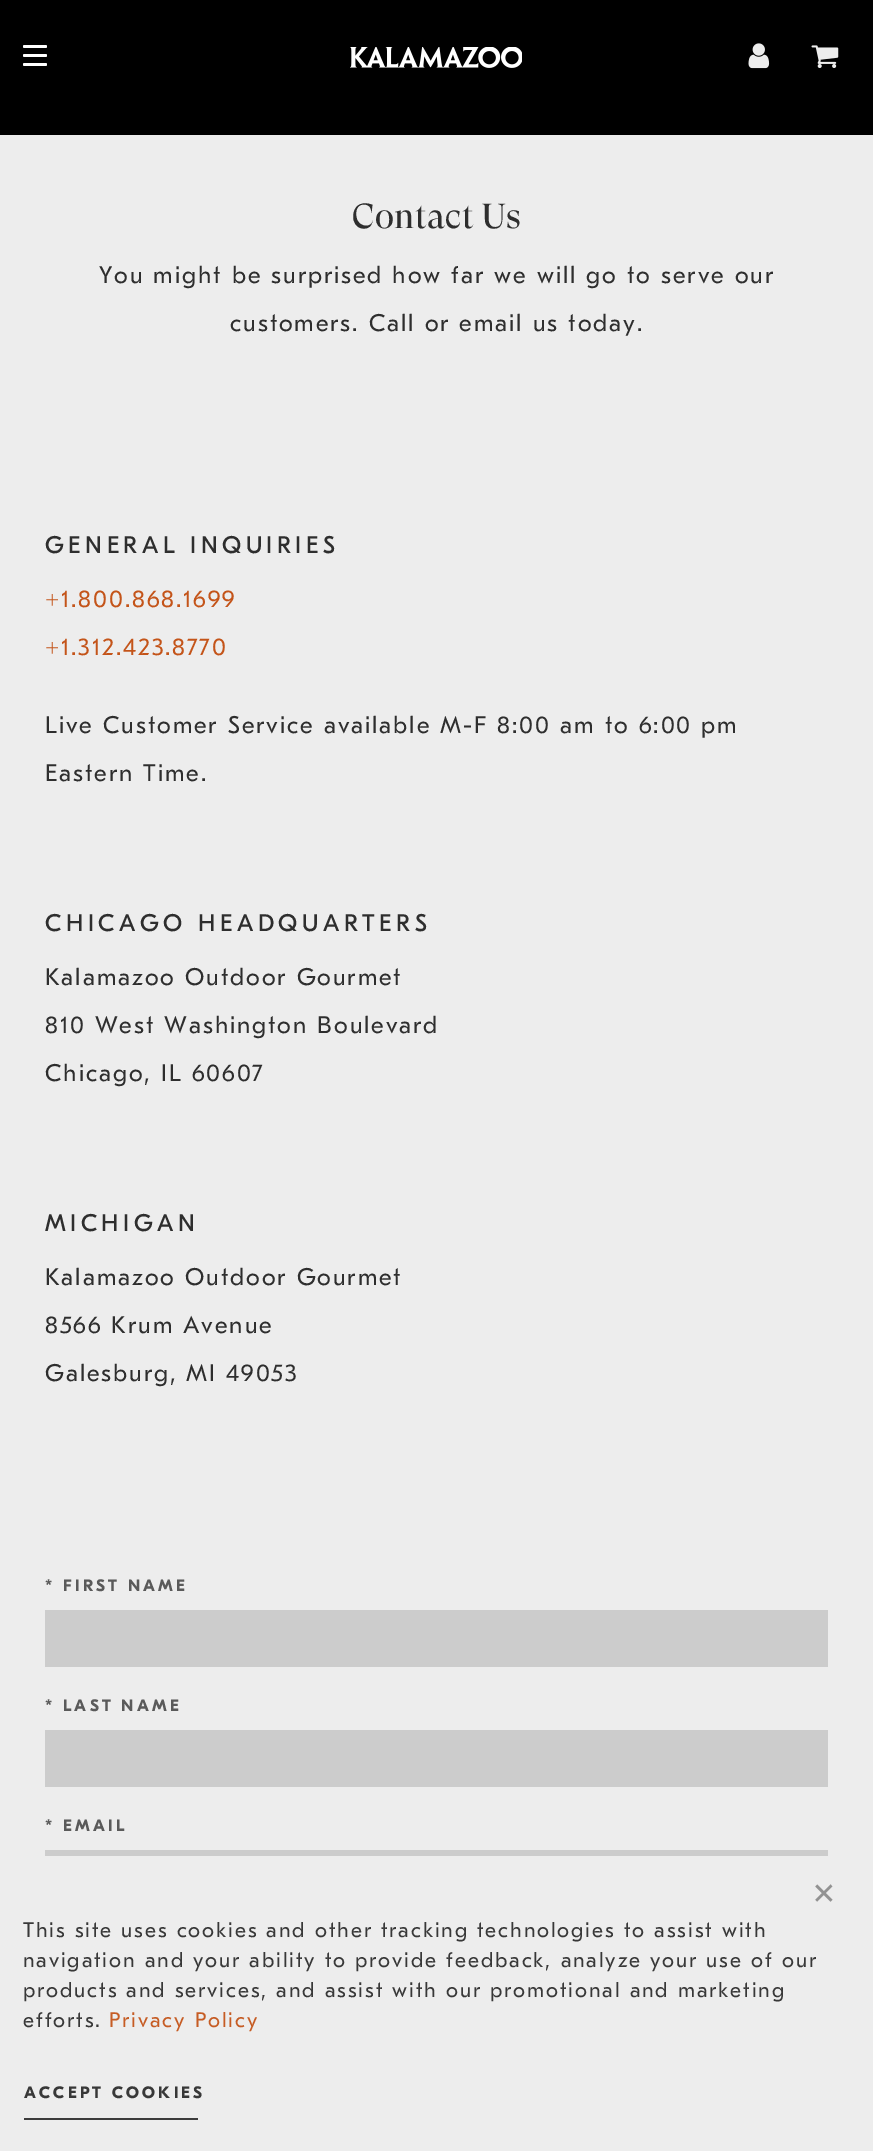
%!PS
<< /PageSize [873 2151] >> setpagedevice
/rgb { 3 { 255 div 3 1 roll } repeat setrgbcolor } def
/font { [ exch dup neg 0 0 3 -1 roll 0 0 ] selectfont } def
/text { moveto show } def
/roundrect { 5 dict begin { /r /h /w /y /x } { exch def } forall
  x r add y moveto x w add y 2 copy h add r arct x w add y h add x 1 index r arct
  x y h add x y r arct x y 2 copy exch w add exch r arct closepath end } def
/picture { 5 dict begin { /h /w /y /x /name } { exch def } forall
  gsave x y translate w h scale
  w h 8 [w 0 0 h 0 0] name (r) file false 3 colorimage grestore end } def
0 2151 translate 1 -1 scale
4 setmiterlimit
0 0 0 rgb
0 0 873 2151 rectfill
255 255 255 rgb
23 45 24 3 1.5 roundrect fill
23 54 24 3 1.5 roundrect fill
23 63 24 3 1.5 roundrect fill
(img_01.rgb) 350 47 172 21 picture
(img_02.rgb) 748 43 22 26 picture
(img_03.rgb) 811 45 28 23 picture
237 237 237 rgb
0 135 873 2016 rectfill
204 204 204 rgb
45 1610 783 57 rectfill
45 1730 783 57 rectfill
45 1850 783 6 rectfill
60 60 60 rgb
24 2118 174 2 rectfill
/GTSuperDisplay-Regular 34.5 font
46 46 46 rgb
352 228 moveto 0.4 0 (Contact Us) ashow
/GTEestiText-Regular 24 font
99 283 moveto 1.9 0 (You might be surprised how far we will go to serve our) ashow
230 331 moveto 1.9 0 (customers. Call or email us today.) ashow
/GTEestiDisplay-Regular 24 font
45 553 moveto 4.5 0 (GENERAL INQUIRIES) ashow
/GTEestiText-Regular 24 font
196 84 25 rgb
45 607 moveto 1.9 0 (+1.800.868.1699) ashow
45 655 moveto 1.9 0 (+1.312.423.8770) ashow
46 46 46 rgb
45 733 moveto 1.9 0 (Live Customer Service available M-F 8:00 am to 6:00 pm) ashow
45 781 moveto 1.9 0 (Eastern Time.) ashow
/GTEestiDisplay-Regular 24 font
45 931 moveto 4.5 0 (CHICAGO HEADQUARTERS) ashow
/GTEestiText-Regular 24 font
45 985 moveto 1.9 0 (Kalamazoo Outdoor Gourmet) ashow
45 1033 moveto 1.9 0 (810 West Washington Boulevard) ashow
45 1081 moveto 1.9 0 (Chicago, IL 60607) ashow
/GTEestiDisplay-Regular 24 font
45 1231 moveto 4.5 0 (MICHIGAN) ashow
/GTEestiText-Regular 24 font
45 1285 moveto 1.9 0 (Kalamazoo Outdoor Gourmet) ashow
45 1333 moveto 1.9 0 (8566 Krum Avenue) ashow
45 1381 moveto 1.9 0 (Galesburg, MI 49053) ashow
/GTEestiDisplay-Bold 16.5 font
90 90 90 rgb
45 1591 moveto 3.25 0 (* FIRST NAME) ashow
45 1711 moveto 3.25 0 (* LAST NAME) ashow
45 1831 moveto 3.25 0 (* EMAIL) ashow
/LiberationSerif-Bold 42 font
146 146 146 rgb
(×) 812 1907 text
/GTEestiText-Regular 21 font
56 56 56 rgb
23 1937 moveto 1.9 0 (This site uses cookies and other tracking technologies to assist with) ashow
23 1967 moveto 1.9 0 (navigation and your ability to provide feedback, analyze your use of our) ashow
23 1997 moveto 1.9 0 (products and services, and assist with our promotional and marketing) ashow
23 2027 moveto 1.9 0 (efforts.) ashow
198 92 36 rgb
109 2027 moveto 1.9 0 (Privacy Policy) ashow
/GTEestiDisplay-Bold 16.5 font
56 56 56 rgb
24 2098 moveto 3.25 0 (ACCEPT COOKIES) ashow
showpage
